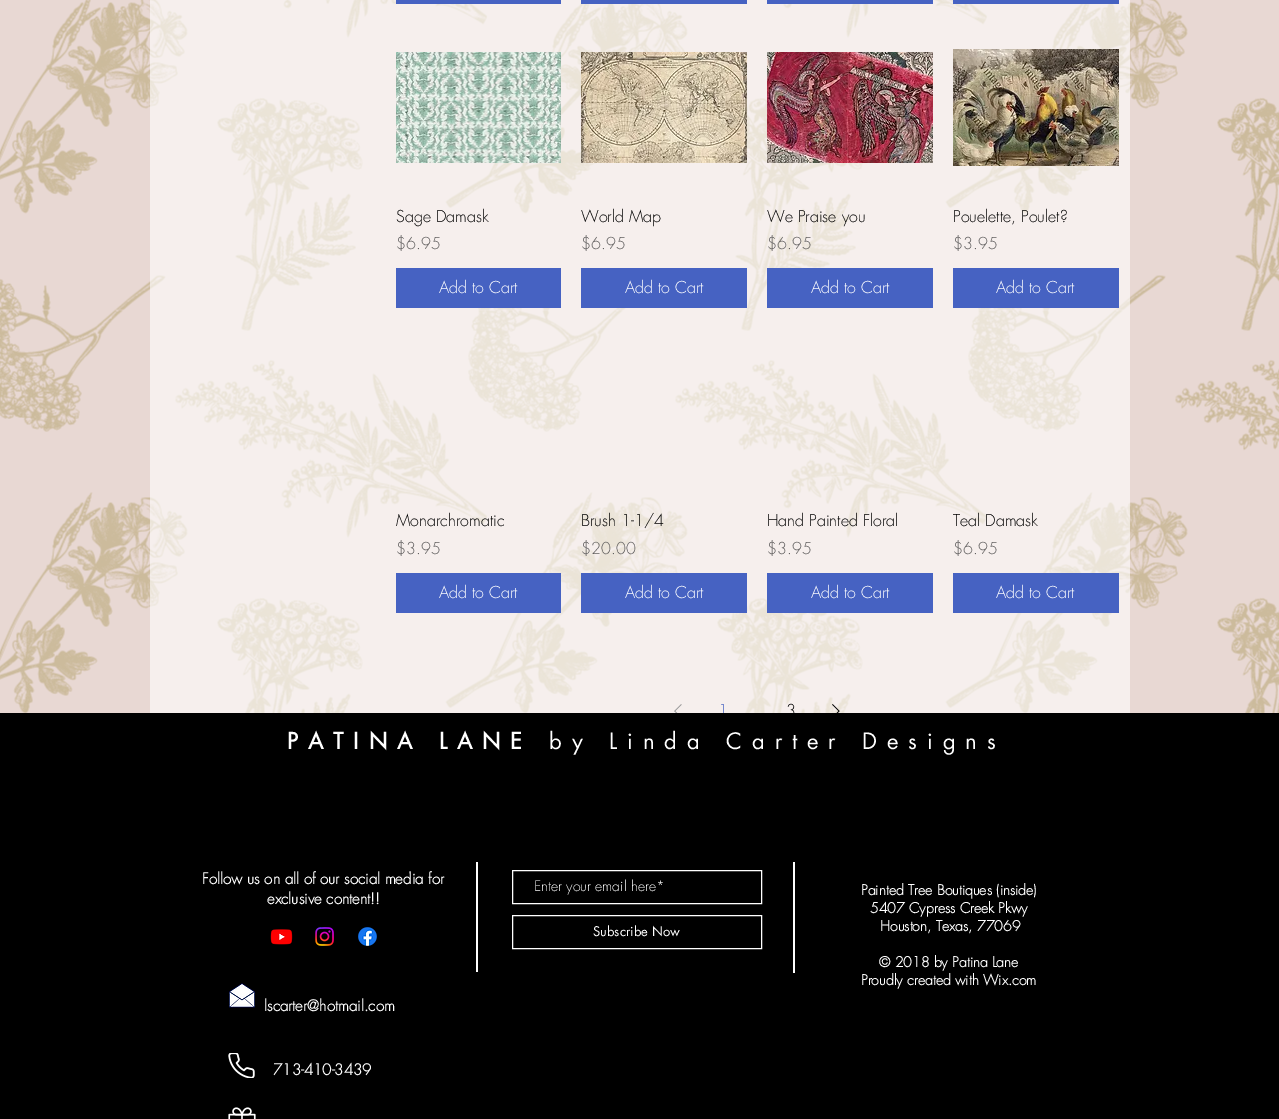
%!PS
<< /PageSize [1279 1119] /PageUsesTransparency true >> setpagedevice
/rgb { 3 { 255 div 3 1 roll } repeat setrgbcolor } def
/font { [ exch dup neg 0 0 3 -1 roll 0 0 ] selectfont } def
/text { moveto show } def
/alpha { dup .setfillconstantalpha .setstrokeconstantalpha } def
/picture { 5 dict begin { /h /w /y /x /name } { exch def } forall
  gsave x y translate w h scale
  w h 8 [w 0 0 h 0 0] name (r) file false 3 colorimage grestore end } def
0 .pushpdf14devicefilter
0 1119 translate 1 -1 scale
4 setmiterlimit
232 216 211 rgb
0 0 1279 1119 rectfill
(img_01.rgb) 0 0 1279 713 picture
0.6 alpha
255 255 255 rgb
150 0 980 713 rectfill
1 alpha
70 98 194 rgb
396 0 165 4 rectfill
581 0 166 4 rectfill
767 0 166 4 rectfill
953 0 166 4 rectfill
(img_02.rgb) 396 52 165 111 picture
396 268 165 40 rectfill
(img_03.rgb) 581 52 166 111 picture
581 268 166 40 rectfill
(img_04.rgb) 767 52 166 111 picture
767 268 166 40 rectfill
(img_05.rgb) 953 49 166 117 picture
953 268 166 40 rectfill
396 573 165 40 rectfill
581 573 166 40 rectfill
767 573 166 40 rectfill
953 573 166 40 rectfill
(img_06.rgb) 674 704 8 9 picture
(img_07.rgb) 832 704 8 9 picture
/futura-Light 16 font
0 0 0 rgb
(Sage Damask) 396 222 text
96 94 94 rgb
($6.95) 396 249 text
255 255 255 rgb
(Add to Cart) 439 293 text
0 0 0 rgb
(World Map) 581 222 text
96 94 94 rgb
($6.95) 581 249 text
255 255 255 rgb
(Add to Cart) 625 293 text
0 0 0 rgb
(We Praise you) 767 222 text
96 94 94 rgb
($6.95) 767 249 text
255 255 255 rgb
(Add to Cart) 811 293 text
0 0 0 rgb
(Pouelette, Poulet?) 953 222 text
96 94 94 rgb
($3.95) 953 249 text
255 255 255 rgb
(Add to Cart) 996 293 text
0 0 0 rgb
(Monarchromatic) 396 526 text
96 94 94 rgb
($3.95) 396 554 text
255 255 255 rgb
(Add to Cart) 439 598 text
0 0 0 rgb
(Brush 1-1/4) 581 526 text
96 94 94 rgb
($20.00) 581 554 text
255 255 255 rgb
(Add to Cart) 625 598 text
0 0 0 rgb
(Hand Painted Floral) 767 526 text
96 94 94 rgb
($3.95) 767 554 text
255 255 255 rgb
(Add to Cart) 811 598 text
0 0 0 rgb
(Teal Damask) 953 526 text
96 94 94 rgb
($6.95) 953 554 text
255 255 255 rgb
(Add to Cart) 996 598 text
70 98 194 rgb
(1) 718 716 text
0 0 0 rgb
(3) 786 716 text
0 713 1279 406 rectfill
/futura-Bold 22 font
255 255 255 rgb
287 749 moveto 9.9 0 (PATINA LANE) ashow
/futura-Regular 22 font
549 749 moveto 9.9 0 (by Linda Carter Designs) ashow
/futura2-Bold 15 font
(Follow us on all of our social media for) 202 884 text
(exclusive content!!) 267 904 text
476 862 2 110 rectfill
512.5 870.5 249 33 rectstroke
/futura-Light 14 font
(Enter your email here*) 534 891 text
512.5 915.5 249 33 rectstroke
/futura-Regular 13 font
(Subscribe Now) 593 936 text
793 862 2 111 rectfill
/futura2-Bold 14 font
(Painted Tree Boutiques \(inside\)) 861 895 text
(5407 Cypress Creek Pkwy) 870 913 text
(Houston, Texas, 77069) 880 931 text
(© 2018 by Patina Lane) 879 967 text
(Proudly created with Wix.com) 861 985 text
(img_08.rgb) 270 929 23 16 picture
(img_09.rgb) 315 927 19 19 picture
(img_10.rgb) 358 927 19 19 picture
(img_11.rgb) 229 983 26 25 picture
/futura2-Bold 15 font
(lscarter@hotmail.com) 264 1011 text
(img_12.rgb) 228 1053 27 25 picture
(713-410-3439) 273 1075 text
(img_13.rgb) 228 1107 28 12 picture
.poppdf14devicefilter showpage
